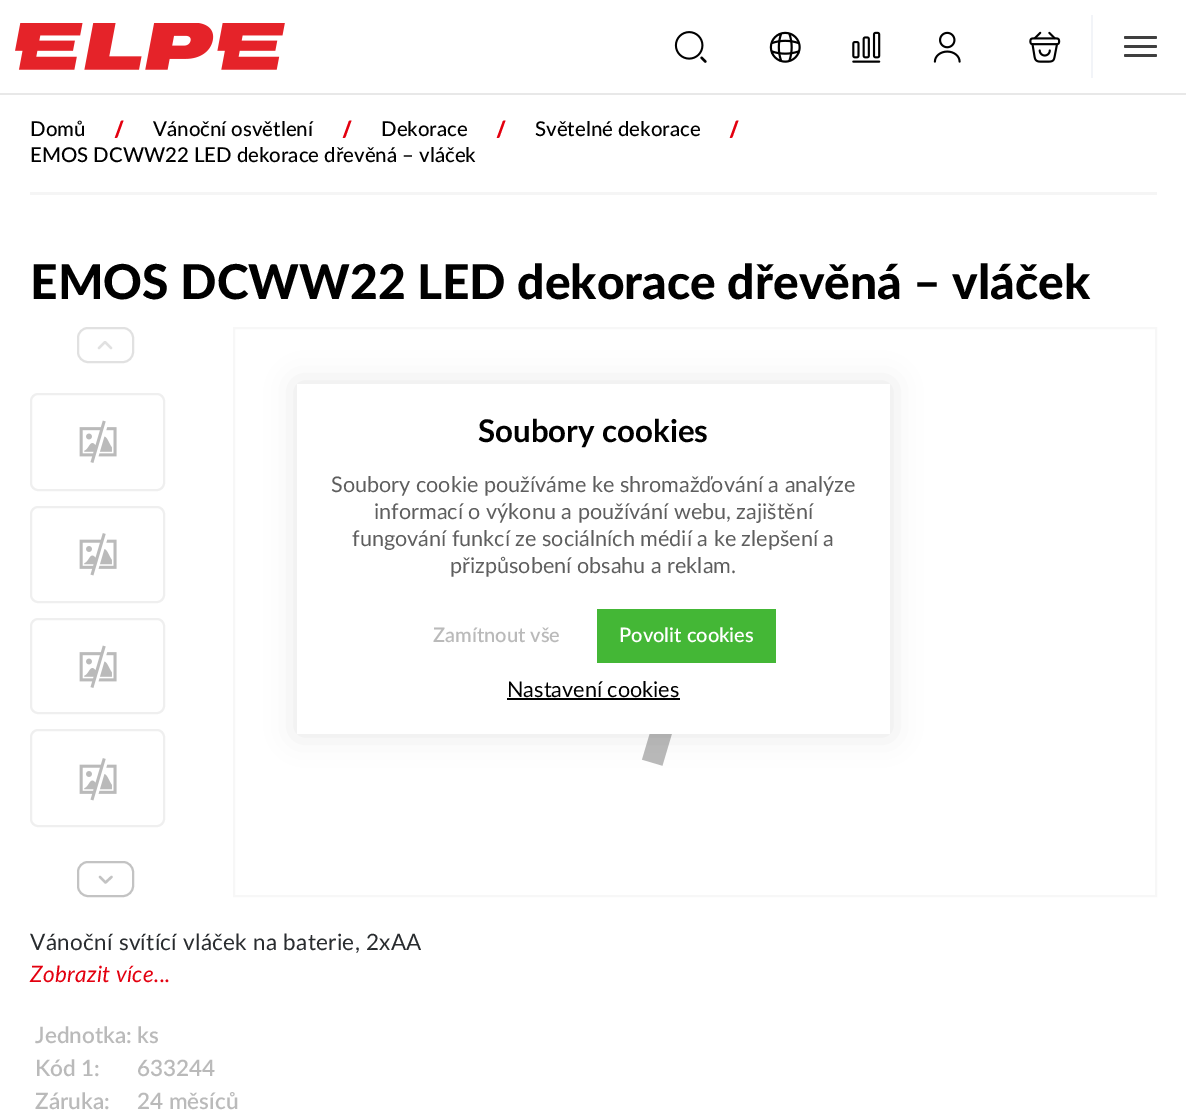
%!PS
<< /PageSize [1186 1117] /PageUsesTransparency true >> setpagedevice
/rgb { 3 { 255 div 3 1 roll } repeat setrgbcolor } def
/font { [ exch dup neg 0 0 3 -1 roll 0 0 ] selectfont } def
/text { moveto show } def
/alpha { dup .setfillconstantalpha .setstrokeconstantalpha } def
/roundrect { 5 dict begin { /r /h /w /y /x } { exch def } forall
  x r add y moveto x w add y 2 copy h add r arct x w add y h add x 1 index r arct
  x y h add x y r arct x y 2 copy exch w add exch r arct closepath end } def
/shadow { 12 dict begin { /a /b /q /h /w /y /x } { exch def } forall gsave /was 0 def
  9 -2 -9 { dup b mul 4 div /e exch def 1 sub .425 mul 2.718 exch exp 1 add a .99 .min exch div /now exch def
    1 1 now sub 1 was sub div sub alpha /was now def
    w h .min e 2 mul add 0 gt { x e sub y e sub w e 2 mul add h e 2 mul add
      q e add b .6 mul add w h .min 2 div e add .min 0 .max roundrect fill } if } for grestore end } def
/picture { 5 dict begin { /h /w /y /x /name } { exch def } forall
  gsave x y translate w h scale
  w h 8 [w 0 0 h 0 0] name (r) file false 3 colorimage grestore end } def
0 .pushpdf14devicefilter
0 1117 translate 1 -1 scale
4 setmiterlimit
255 255 255 rgb
0 0 1186 1117 rectfill
232 232 232 rgb
0 93 1186 2 rectfill
(img_01.rgb) 15 23 270 47 picture
(img_02.rgb) 674 31 33 32 picture
(img_03.rgb) 769 31 32 32 picture
(img_04.rgb) 852 31 29 32 picture
(img_05.rgb) 933 31 28 32 picture
(img_06.rgb) 1029 31 32 32 picture
242 244 248 rgb
1091 15 2 63 rectfill
63 63 63 rgb
1124 36 33 3 1.5 roundrect fill
1124 45 33 3 1.5 roundrect fill
1124 54 33 3 1.5 roundrect fill
245 245 245 rgb
30 192 1127 3 rectfill
225 225 225 rgb
2 setlinewidth
78 328 55 34 10 roundrect stroke
gsave
97.5 349.5 moveto 0 -8.5 rlineto 15 0 rlineto 0 8.5 rlineto closepath clip newpath
2.4 setlinewidth
1 setlinecap
1 setlinejoin
99 348 moveto 6 -6 rlineto 6 6 rlineto stroke
grestore
239 239 239 rgb
31 394 133 96 7 roundrect stroke
(img_07.rgb) 79 420 38 43 picture
31 507 133 95 7 roundrect stroke
(img_08.rgb) 79 533 38 43 picture
31 619 133 94 7 roundrect stroke
(img_07.rgb) 79 645 38 43 picture
31 730 133 96 7 roundrect stroke
(img_08.rgb) 79 758 38 43 picture
195 195 195 rgb
78 862 55 34 10 roundrect stroke
gsave
112.5 875.5 moveto 0 8.5 rlineto -15 0 rlineto 0 -8.5 rlineto closepath clip newpath
113 875 moveto 0 8.5 rlineto -15 0 rlineto 0 -8.5 rlineto closepath clip newpath
2.4 setlinewidth
1 setlinecap
1 setlinejoin
111.5 877 moveto -6 5.5 rlineto -5.5 -5.5 rlineto stroke
grestore
247 247 247 rgb
234 328 922 568 rectstroke
(img_09.rgb) 641 734 31 32 picture
0 0 0 rgb
297 384 593 350 0 15 0.1 shadow
255 255 255 rgb
297 384 593 350 rectfill
68 183 54 rgb
597 609 179 54 rectfill
0 0 0 rgb
507 698 173 2 rectfill
/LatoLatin-Medium 20.4 font
(Domů) 30 136 text
/LatoLatin-Black 22 font
227 0 15 rgb
gsave 114 137 translate -1 rotate 0 0 moveto (/) show grestore
/LatoLatin-Medium 20.4 font
0 0 0 rgb
(Vánoční osvětlení) 153 136 text
/LatoLatin-Black 22 font
227 0 15 rgb
gsave 342 137 translate -1 rotate 0 0 moveto (/) show grestore
/LatoLatin-Medium 20.4 font
0 0 0 rgb
(Dekorace) 381 136 text
/LatoLatin-Black 22 font
227 0 15 rgb
gsave 496 137 translate -1 rotate 0 0 moveto (/) show grestore
/LatoLatin-Medium 20.4 font
0 0 0 rgb
(Světelné dekorace) 535 136 text
/LatoLatin-Black 22 font
227 0 15 rgb
gsave 729 137 translate -1 rotate 0 0 moveto (/) show grestore
/LatoLatin-Medium 20.4 font
0 0 0 rgb
(EMOS DCWW22 LED dekorace dřevěná – vláček) 30 162 text
/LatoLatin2-Black 48 font
(EMOS DCWW22 LED dekorace dřevěná – vláček) 30 299 text
/LatoLatin-Regular 22.5 font
41 44 47 rgb
30 950 moveto 0.3 0 (Vánoční svítící vláček na baterie, 2xAA) ashow
/LatoLatin-Italic 22.5 font
227 0 15 rgb
30 982 moveto 0.3 0 (Zobrazit více...) ashow
/LatoLatin-SemiBold 22.5 font
186 186 186 rgb
(Jednotka:) 35 1043 text
(ks) 137 1043 text
(Kód 1:) 35 1076 text
(633244) 137 1076 text
(Záruka:) 35 1109 text
(24 měsíců) 137 1109 text
/LatoLatin-Bold 31.25 font
0 0 0 rgb
(Soubory cookies) 478 442 text
/LatoLatin-Regular 21.6 font
94 94 94 rgb
(Soubory cookie používáme ke shromažďování a analýze) 331 492 text
(informací o výkonu a používání webu, zajištění) 374 519 text
(fungování funkcí ze sociálních médií a ke zlepšení a) 352 546 text
(přizpůsobení obsahu a reklam.) 450 573 text
/LatoLatin-SemiBold 20 font
186 186 186 rgb
(Zamítnout vše) 433 642 text
255 255 255 rgb
(Povolit cookies) 619 642 text
/LatoLatin-Regular 21.6 font
0 0 0 rgb
(Nastavení cookies) 507 697 text
.poppdf14devicefilter showpage
